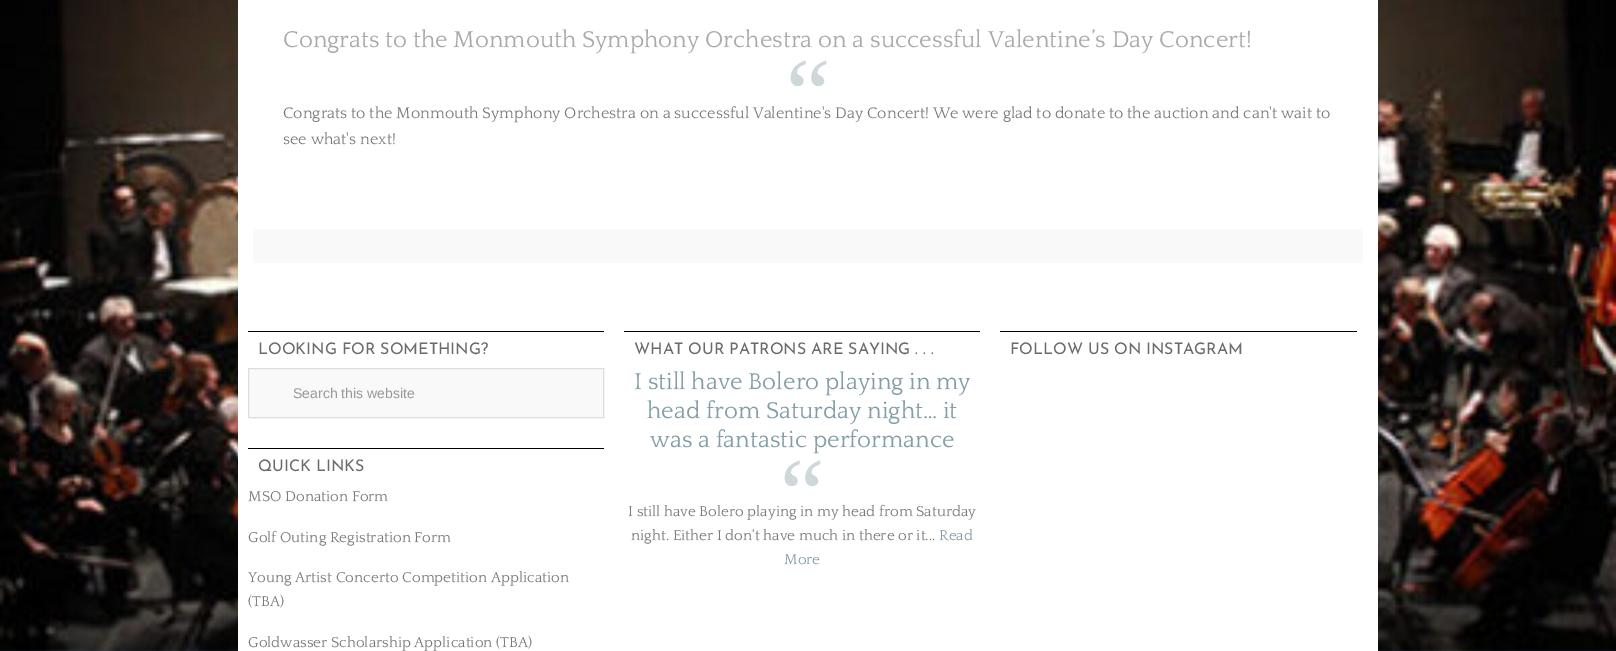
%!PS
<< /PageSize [1616 651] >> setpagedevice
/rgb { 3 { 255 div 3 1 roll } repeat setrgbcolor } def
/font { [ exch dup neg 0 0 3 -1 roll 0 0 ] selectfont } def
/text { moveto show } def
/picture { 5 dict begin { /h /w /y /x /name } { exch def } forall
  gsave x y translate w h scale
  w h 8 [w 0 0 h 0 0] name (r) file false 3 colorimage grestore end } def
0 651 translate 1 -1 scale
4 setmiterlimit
255 255 255 rgb
0 0 1616 651 rectfill
(img_01.rgb) 0 0 1616 651 picture
238 0 1140 651 rectfill
249 249 249 rgb
253 229 1110 34 rectfill
0 0 0 rgb
248 331 356 1 rectfill
249 249 249 rgb
248.5 368.5 moveto 355 0 rlineto 0 49 rlineto -355 0 rlineto closepath gsave fill grestore
221 221 221 rgb
stroke
0 0 0 rgb
248 448 356 1 rectfill
624 331 356 1 rectfill
1000 331 357 1 rectfill
/Quattrocento-Regular 24 font
169 169 169 rgb
(Congrats to the Monmouth Symphony Orchestra on a successful Valentine’s Day Concert!) 283 47 text
/LiberationSerif-Regular 100 font
206 216 219 rgb
(“) 786 127 text
/Quattrocento-Regular 16 font
122 122 122 rgb
(Congrats to the Monmouth Symphony Orchestra on a successful Valentine's Day Concert! We were glad to donate to the auction and can't wait to) 283 118 text
(see what's next!) 283 144 text
/JosefinSans-Thin 16 font
107 107 107 rgb
(LOOKING FOR SOMETHING?) 258 354 text
/LiberationSans-Regular 14 font
153 153 153 rgb
(Search this website) 293 398 text
/JosefinSans-Thin 16 font
107 107 107 rgb
(QUICK LINKS) 258 471 text
/Quattrocento-Regular 15 font
122 122 122 rgb
(MSO Donation Form) 248 501 text
(Golf Outing Registration Form) 248 542 text
(Young Artist Concerto Competition Application) 248 582 text
(\(TBA\)) 248 606 text
(Goldwasser Scholarship Application \(TBA\)) 248 647 text
/JosefinSans-Thin 16 font
107 107 107 rgb
(WHAT OUR PATRONS ARE SAYING . . .) 634 354 text
/Quattrocento-Regular 24 font
130 157 165 rgb
(I still have Bolero playing in my) 634 389 text
(head from Saturday night… it) 647 418 text
(was a fantastic performance) 650 447 text
/LiberationSerif-Regular 100 font
206 216 219 rgb
(“) 780 527 text
/Quattrocento-Regular 15 font
122 122 122 rgb
(I still have Bolero playing in my head from Saturday) 628 516 text
(night. Either I don't have much in there or it...) 631 540 text
130 157 165 rgb
(Read) 939 540 text
(More) 784 564 text
/JosefinSans-Thin 16 font
107 107 107 rgb
(FOLLOW US ON INSTAGRAM) 1010 354 text
showpage
